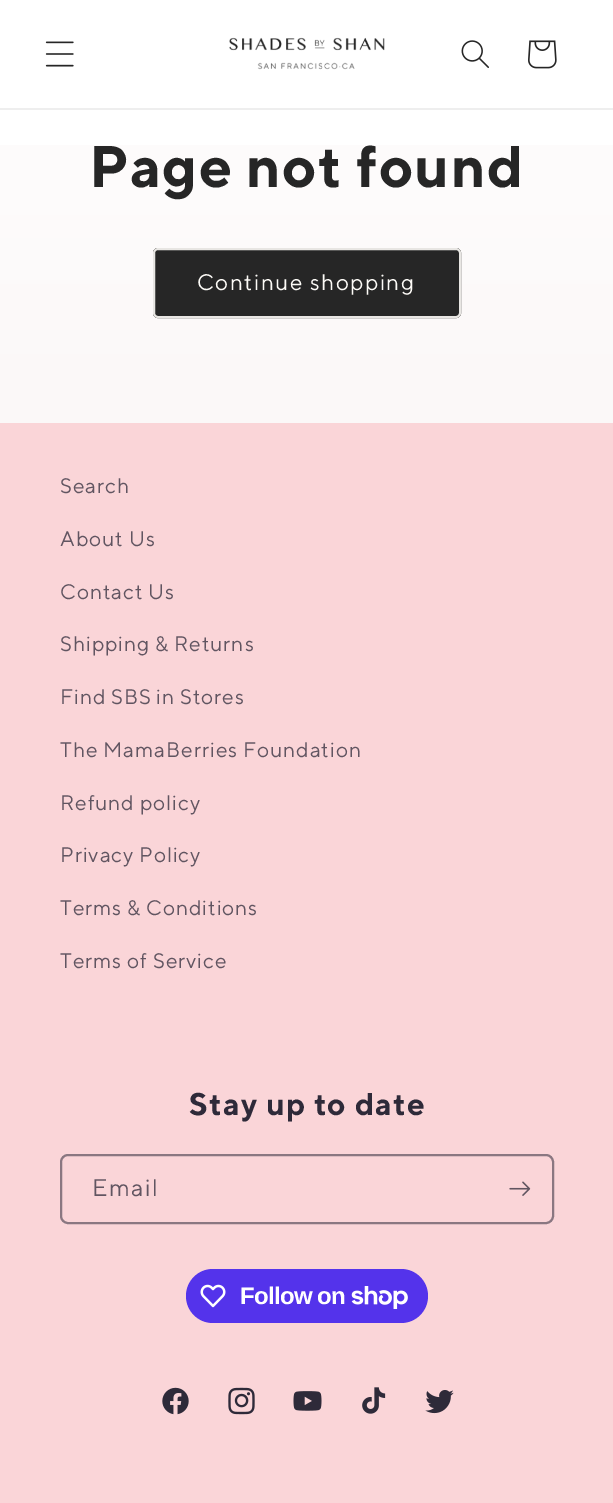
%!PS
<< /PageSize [613 1503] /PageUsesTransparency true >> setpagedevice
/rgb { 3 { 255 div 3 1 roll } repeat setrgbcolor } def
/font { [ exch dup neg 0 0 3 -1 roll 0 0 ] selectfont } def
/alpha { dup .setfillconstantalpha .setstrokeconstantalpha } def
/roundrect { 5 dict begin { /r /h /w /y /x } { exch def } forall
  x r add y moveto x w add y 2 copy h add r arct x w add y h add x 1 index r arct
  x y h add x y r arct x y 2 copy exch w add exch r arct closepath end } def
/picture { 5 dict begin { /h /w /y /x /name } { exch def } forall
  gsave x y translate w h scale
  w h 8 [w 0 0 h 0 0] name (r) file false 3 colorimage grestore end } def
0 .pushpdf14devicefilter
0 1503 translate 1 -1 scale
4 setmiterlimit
255 255 255 rgb
0 0 613 1503 rectfill
gsave 0 145 moveto 613 0 rlineto 0 278 rlineto -613 0 rlineto closepath clip newpath
<< /ShadingType 2 /ColorSpace /DeviceRGB /Coords [307 0 307 1503] /Extend [true true] /Function << /FunctionType 3 /Domain [0 1] /Functions [<< /FunctionType 2 /Domain [0 1] /C0 [1 1 1] /C1 [0.973 0.949 0.949] /N 1 >> << /FunctionType 2 /Domain [0 1] /C0 [0.973 0.949 0.949] /C1 [0.973 0.949 0.949] /N 1 >>] /Bounds [0.5] /Encode [0 1 0 1] >> >> shfill grestore
238 238 238 rgb
0 108 613 2 rectfill
(img_01.rgb) 45 41 29 26 picture
(img_02.rgb) 229 37 156 33 picture
(img_03.rgb) 461 40 28 28 picture
(img_04.rgb) 528 40 29 29 picture
38 38 38 rgb
153 248 308 70 5 roundrect fill
2 setlinewidth
154 249 306 68 4 roundrect stroke
0.9 alpha
253 251 247 rgb
154 249 306 68 4 roundrect stroke
1 alpha
250 213 216 rgb
0 423 613 1080 rectfill
138 119 129 rgb
61 1155 492 68 7 roundrect stroke
(img_05.rgb) 509 1181 22 15 picture
84 51 235 rgb
186 1269 242 54 27 roundrect fill
(img_06.rgb) 200 1284 26 24 picture
(img_07.rgb) 351 1286 57 23 picture
(img_08.rgb) 162 1387 27 28 picture
(img_09.rgb) 228 1387 27 28 picture
(img_10.rgb) 293 1391 29 20 picture
(img_11.rgb) 362 1387 24 27 picture
(img_12.rgb) 425 1390 29 24 picture
/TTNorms-Bold 58.5 font
38 38 38 rgb
89 187 moveto 1.2 0 (Page not found) ashow
/TTNorms-Regular 22.5 font
253 251 247 rgb
197 290 moveto 1.5 0 (Continue shopping) ashow
/TTNorms-Regular 21 font
97 85 97 rgb
60 493 moveto 0.9 0 (Search) ashow
60 546 moveto 0.9 0 (About Us) ashow
60 599 moveto 0.9 0 (Contact Us) ashow
60 651 moveto 0.9 0 (Shipping & Returns) ashow
60 704 moveto 0.9 0 (Find SBS in Stores) ashow
60 757 moveto 0.9 0 (The MamaBerries Foundation) ashow
60 810 moveto 0.9 0 (Refund policy) ashow
60 862 moveto 0.9 0 (Privacy Policy) ashow
60 915 moveto 0.9 0 (Terms & Conditions) ashow
60 968 moveto 0.9 0 (Terms of Service) ashow
/TTNorms-Bold 31.25 font
46 42 57 rgb
189 1115 moveto 1.2 0 (Stay up to date) ashow
/TTNorms-Regular 24 font
97 85 97 rgb
92 1196 moveto 1.5 0 (Email) ashow
/LiberationSans-Bold 24 font
255 255 255 rgb
240 1304 moveto -0.75 0 (Follow on) ashow
.poppdf14devicefilter showpage
